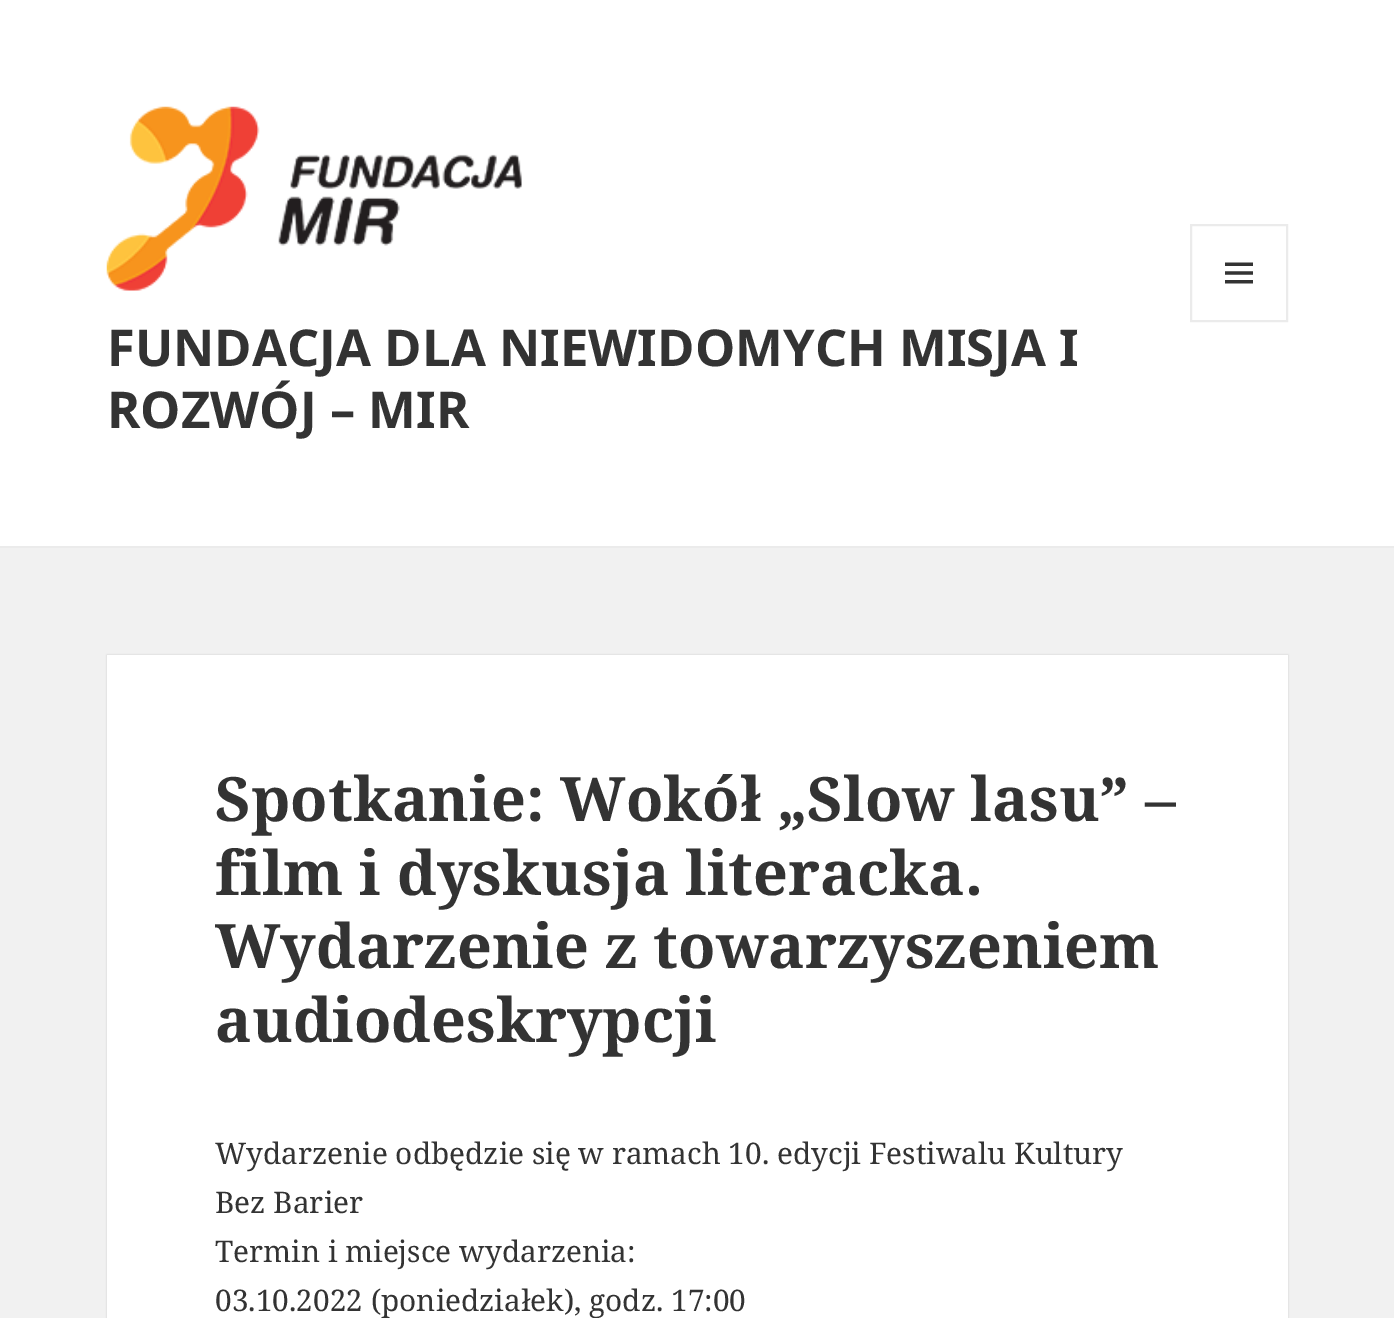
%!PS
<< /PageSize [1394 1318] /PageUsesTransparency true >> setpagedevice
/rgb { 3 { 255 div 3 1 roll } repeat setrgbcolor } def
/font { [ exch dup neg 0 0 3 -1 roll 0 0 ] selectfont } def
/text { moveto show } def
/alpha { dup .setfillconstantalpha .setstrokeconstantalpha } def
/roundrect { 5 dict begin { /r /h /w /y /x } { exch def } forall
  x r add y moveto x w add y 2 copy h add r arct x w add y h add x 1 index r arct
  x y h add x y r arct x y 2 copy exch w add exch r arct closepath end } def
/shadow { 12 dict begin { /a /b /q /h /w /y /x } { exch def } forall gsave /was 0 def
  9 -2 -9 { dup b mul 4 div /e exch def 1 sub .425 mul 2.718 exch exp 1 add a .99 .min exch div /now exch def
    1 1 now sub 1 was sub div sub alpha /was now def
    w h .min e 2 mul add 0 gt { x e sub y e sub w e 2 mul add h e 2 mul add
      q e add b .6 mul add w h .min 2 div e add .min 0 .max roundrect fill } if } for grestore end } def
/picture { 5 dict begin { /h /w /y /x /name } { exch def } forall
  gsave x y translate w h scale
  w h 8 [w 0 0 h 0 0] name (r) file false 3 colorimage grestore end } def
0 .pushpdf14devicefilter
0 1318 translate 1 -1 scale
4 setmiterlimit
241 241 241 rgb
0 0 1394 1318 rectfill
255 255 255 rgb
0 0 1394 546 rectfill
235 235 235 rgb
0 546 1394 2 rectfill
(img_01.rgb) 106 106 416 185 picture
2 setlinewidth
1191 225 96 96 rectstroke
(img_02.rgb) 1225 262 28 22 picture
0 0 0 rgb
107 655 1181 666 0 1 0.15 shadow
255 255 255 rgb
107 655 1181 663 rectfill
/NotoSans-Bold 50.75 font
51 51 51 rgb
(FUNDACJA DLA NIEWIDOMYCH MISJA I) 107 366 text
(ROZWÓJ – MIR) 107 428 text
/NotoSerif-Bold 61.25 font
(Spotkanie: Wokół „Slow lasu” –) 215 821 text
(film i dyskusja literacka.) 215 895 text
(Wydarzenie z towarzyszeniem) 215 968 text
(audiodeskrypcji) 215 1042 text
/NotoSerif-Regular 29.75 font
(Wydarzenie odbędzie się w ramach 10. edycji Festiwalu Kultury) 215 1164 text
(Bez Barier) 215 1213 text
(Termin i miejsce wydarzenia:) 215 1262 text
(03.10.2022 \(poniedziałek\), godz. 17:00) 215 1311 text
.poppdf14devicefilter showpage
